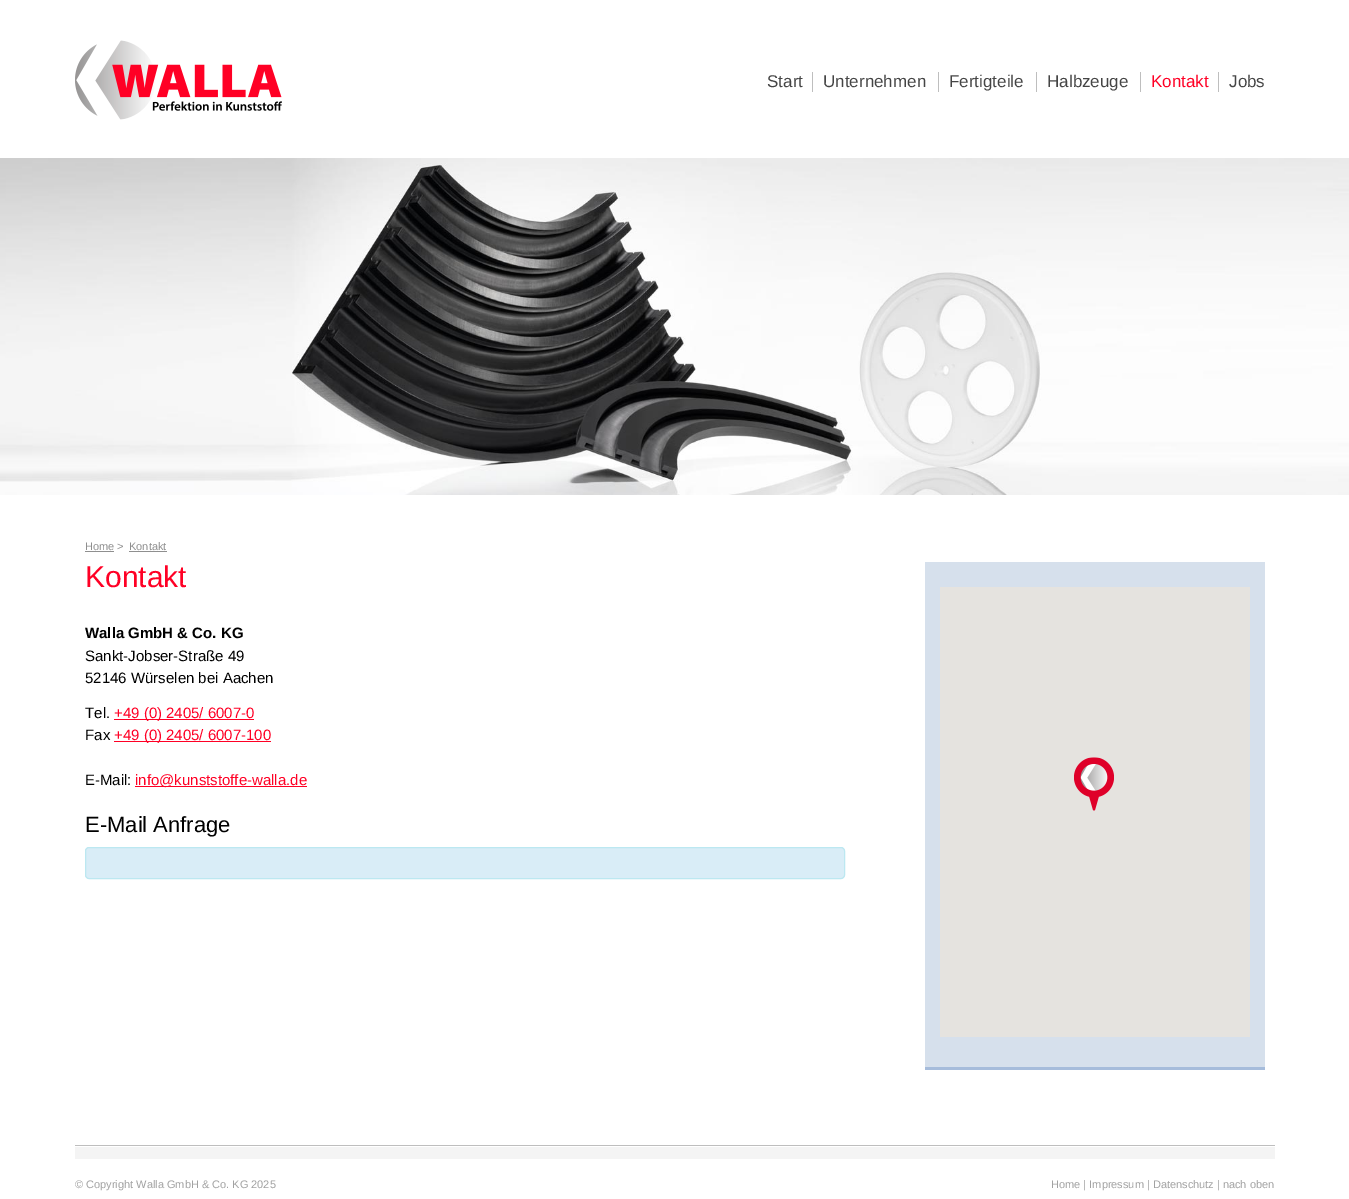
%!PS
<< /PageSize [1349 1199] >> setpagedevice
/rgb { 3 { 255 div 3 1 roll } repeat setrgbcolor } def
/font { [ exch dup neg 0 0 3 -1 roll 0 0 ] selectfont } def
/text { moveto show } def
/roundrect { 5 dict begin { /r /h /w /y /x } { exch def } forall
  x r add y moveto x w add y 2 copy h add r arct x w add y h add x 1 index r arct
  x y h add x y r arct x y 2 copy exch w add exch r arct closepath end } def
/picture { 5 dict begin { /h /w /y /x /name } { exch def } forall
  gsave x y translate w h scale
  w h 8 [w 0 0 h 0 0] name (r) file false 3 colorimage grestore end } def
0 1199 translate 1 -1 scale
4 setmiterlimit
255 255 255 rgb
0 0 1349 1199 rectfill
(img_01.rgb) 75 40 207 80 picture
190 190 190 rgb
812 72 1 20 rectfill
938 72 1 20 rectfill
1036 72 1 20 rectfill
1140 72 1 20 rectfill
1218 72 1 20 rectfill
(img_02.rgb) 0 158 1349 337 picture
143 143 143 rgb
85 551 29 1 rectfill
129 551 38 1 rectfill
255 0 37 rgb
114 719 140 1 rectfill
114 741 157 1 rectfill
135 786 172 1 rectfill
217 237 247 rgb
85.5 847.5 759 31 3.5 roundrect gsave fill grestore
188 232 241 rgb
stroke
214 224 236 rgb
925 562 340 505 rectfill
166 188 219 rgb
925 1067 340 3 rectfill
229 227 223 rgb
940 587 310 450 rectfill
(img_03.rgb) 1074 757 40 54 picture
190 190 190 rgb
75 1145 1200 1 rectfill
244 244 244 rgb
75 1147 1200 12 rectfill
/LiberationSans-Regular 17 font
69 69 69 rgb
(Start) 767 87 text
(Unternehmen) 823 87 text
(Fertigteile) 949 87 text
(Halbzeuge) 1047 87 text
255 0 37 rgb
(Kontakt) 1151 87 text
69 69 69 rgb
(Jobs) 1229 87 text
/LiberationSans-Regular 11 font
143 143 143 rgb
(Home >) 85 550 text
(Kontakt) 129 550 text
/LiberationSans-Regular 30 font
255 0 37 rgb
(Kontakt) 85 587 text
/LiberationSans-Bold 15 font
0 0 0 rgb
(Walla GmbH & Co. KG) 85 638 text
/LiberationSans-Regular 15 font
(Sankt-Jobser-Straße 49) 85 661 text
(52146 Würselen bei Aachen) 85 683 text
(Tel.) 85 718 text
255 0 37 rgb
(+49 \(0\) 2405/ 6007-0) 114 718 text
0 0 0 rgb
(Fax) 85 740 text
255 0 37 rgb
(+49 \(0\) 2405/ 6007-100) 114 740 text
0 0 0 rgb
(E-Mail:) 85 785 text
255 0 37 rgb
(info@kunststoffe-walla.de) 135 785 text
/LiberationSans-Regular 22 font
0 0 0 rgb
(E-Mail Anfrage) 85 832 text
/LiberationSans-Regular 11 font
162 162 162 rgb
(© Copyright Walla GmbH & Co. KG 2025) 75 1188 text
(Home | Impressum | Datenschutz | nach oben) 1051 1188 text
showpage
